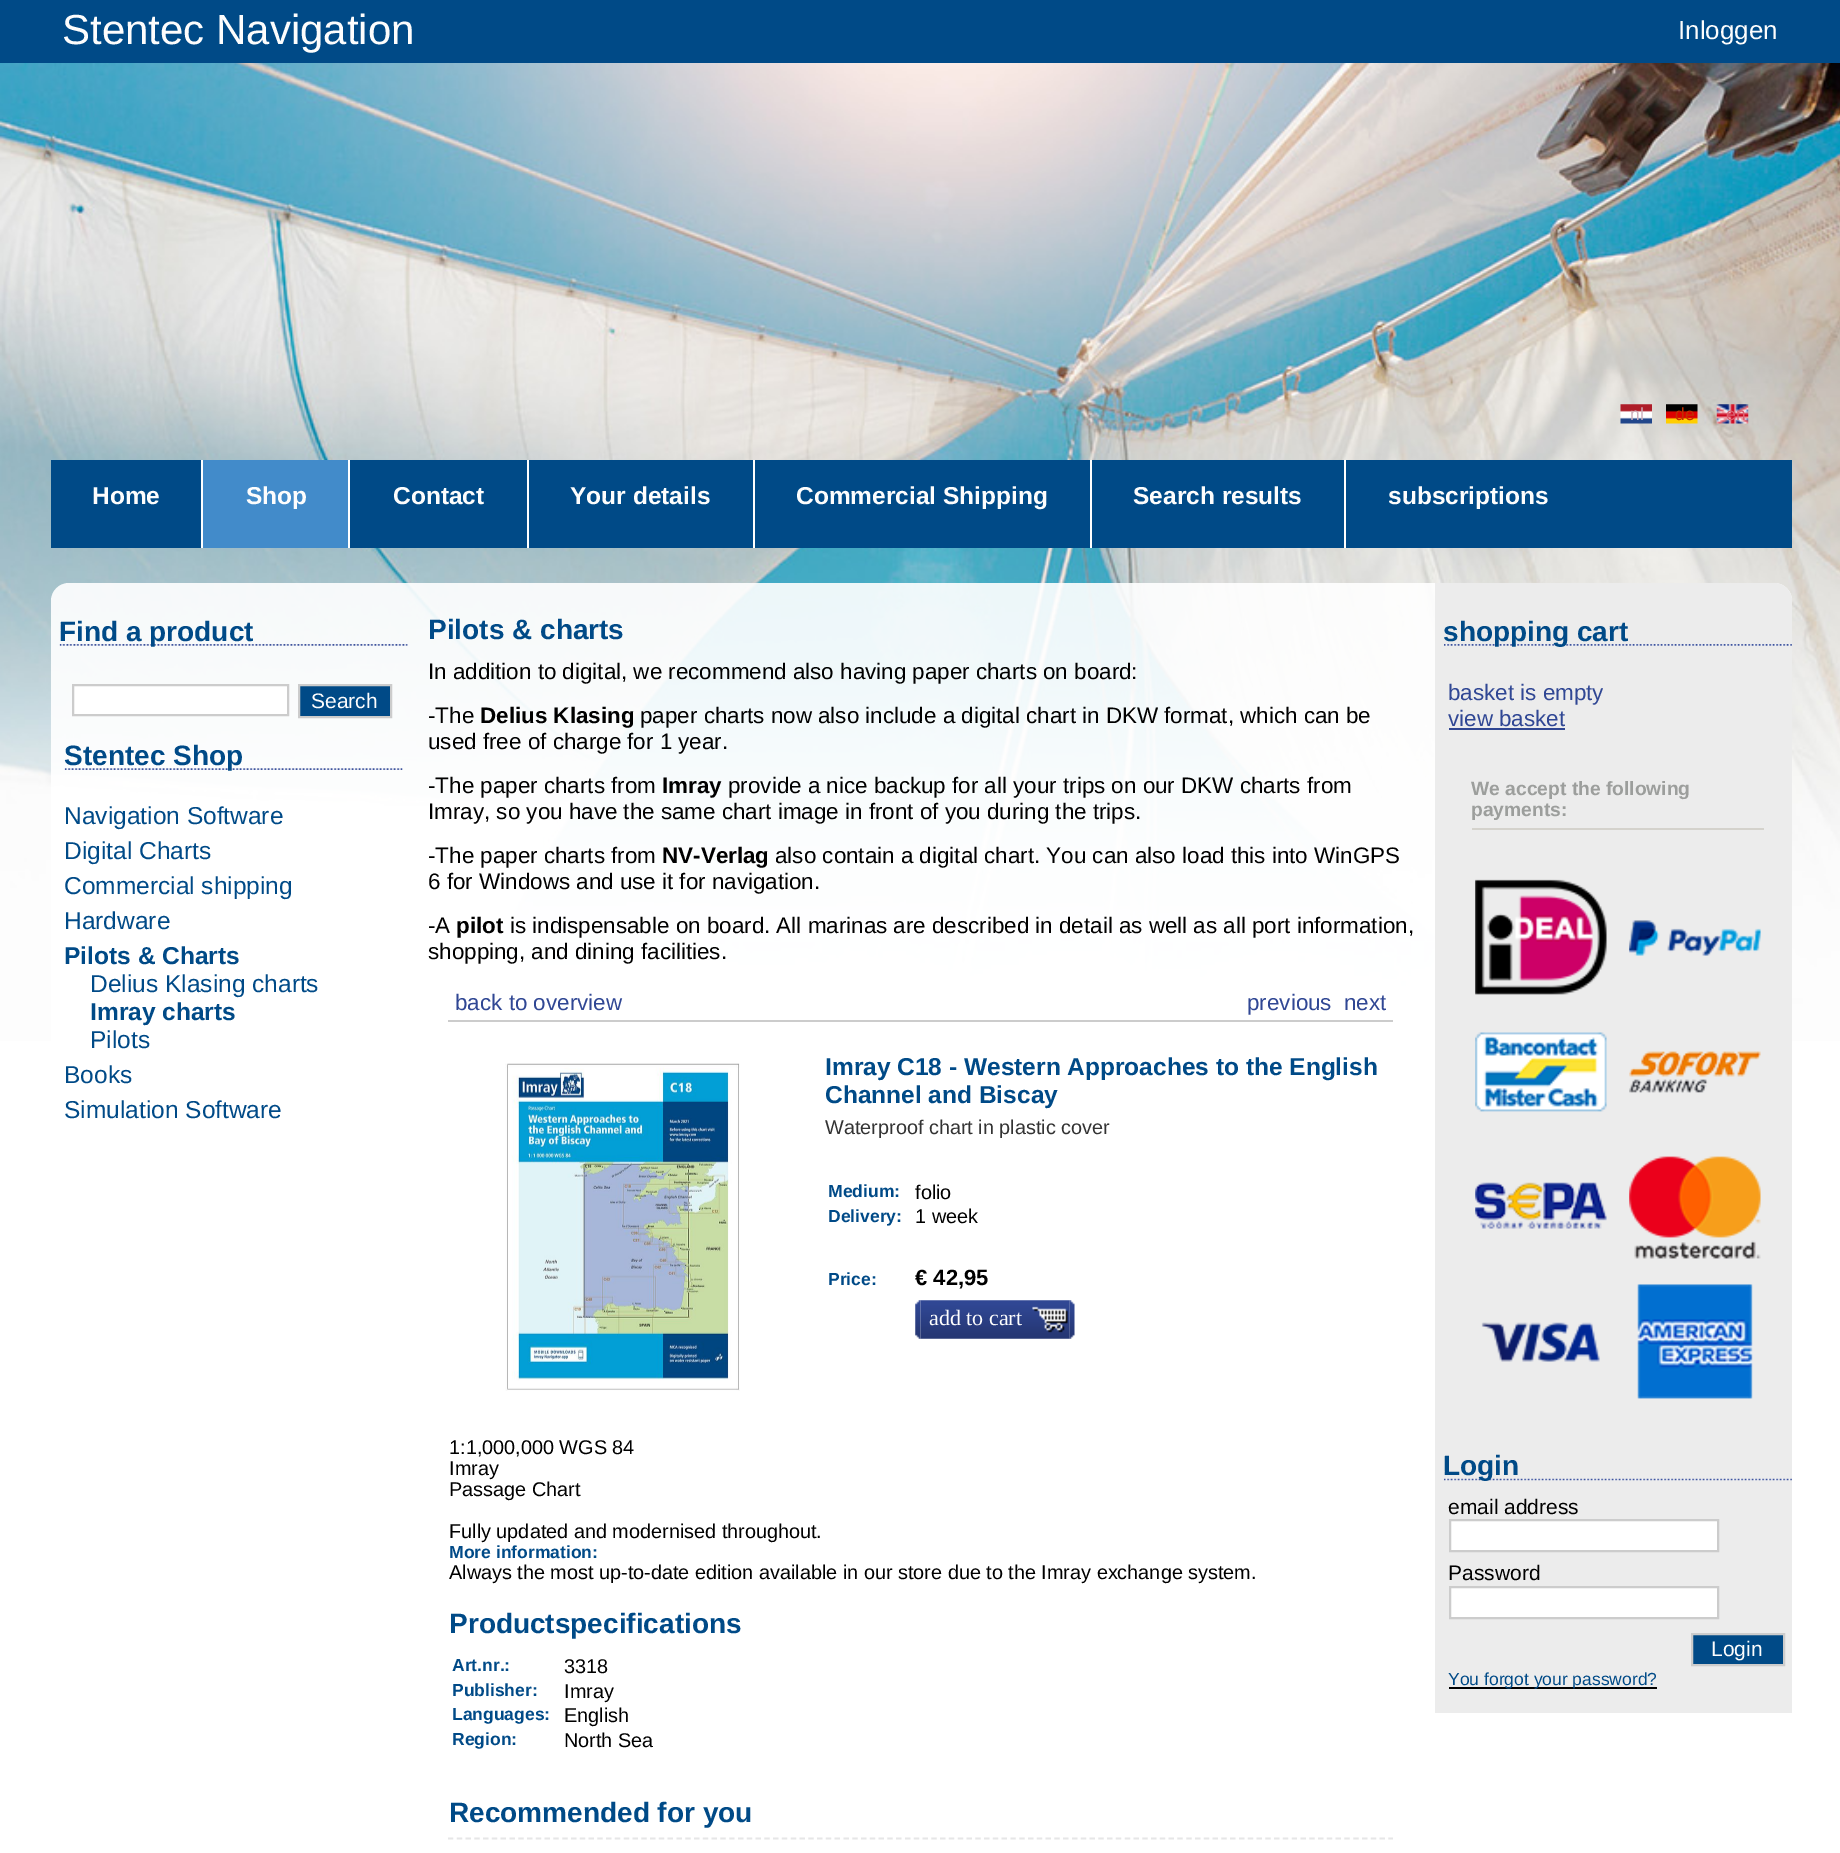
%!PS
<< /PageSize [1840 1853] /PageUsesTransparency true >> setpagedevice
/rgb { 3 { 255 div 3 1 roll } repeat setrgbcolor } def
/font { [ exch dup neg 0 0 3 -1 roll 0 0 ] selectfont } def
/text { moveto show } def
/alpha { dup .setfillconstantalpha .setstrokeconstantalpha } def
/roundrect { 5 dict begin { /r /h /w /y /x } { exch def } forall
  x r add y moveto x w add y 2 copy h add r arct x w add y h add x 1 index r arct
  x y h add x y r arct x y 2 copy exch w add exch r arct closepath end } def
/picture { 5 dict begin { /h /w /y /x /name } { exch def } forall
  gsave x y translate w h scale
  w h 8 [w 0 0 h 0 0] name (r) file false 3 colorimage grestore end } def
0 .pushpdf14devicefilter
0 1853 translate 1 -1 scale
4 setmiterlimit
255 255 255 rgb
0 0 1840 1853 rectfill
(img_01.rgb) 0 63 1840 978 picture
0 74 135 rgb
0 0 1840 63 rectfill
(img_02.rgb) 1620 404 32 20 picture
(img_03.rgb) 1666 404 32 20 picture
(img_04.rgb) 1716 404 33 20 picture
51 460 1741 88 rectfill
255 255 255 rgb
201 460 2 88 rectfill
66 139 202 rgb
203 460 145 88 rectfill
255 255 255 rgb
348 460 2 88 rectfill
527 460 2 88 rectfill
753 460 2 88 rectfill
1090 460 2 88 rectfill
1344 460 2 88 rectfill
0.9 alpha
51 583 1741 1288 18 roundrect fill
1 alpha
(img_05.rgb) 59 644 349 2 picture
73 685 moveto 215 0 rlineto 0 30 rlineto -215 0 rlineto closepath gsave fill grestore
204 204 204 rgb
2 setlinewidth
stroke
0 74 135 rgb
299 685 moveto 92 0 rlineto 0 32 rlineto -92 0 rlineto closepath gsave fill grestore
204 204 204 rgb
stroke
(img_06.rgb) 64 768 339 2 picture
448 1020 945 2 rectfill
(img_07.rgb) 505 1063 235 328 picture
(img_08.rgb) 915 1300 6 39 picture
(img_09.rgb) 920 1300 150 39 picture
(img_10.rgb) 1032 1306 36 27 picture
(img_11.rgb) 1069 1300 6 39 picture
230 230 231 rgb
1.8 setlinewidth
[5.25 3.54] 0 setdash
448 1838.5 moveto 945 0 rlineto stroke
236 236 236 rgb
1435 583 moveto 339 0 rlineto 10 0 18 8 18 18 rcurveto 0 1112 rlineto -357 0 rlineto closepath fill
(img_12.rgb) 1444 644 348 2 picture
48 70 146 rgb
1449 728 116 2 rectfill
212 210 204 rgb
1472 828 292 2 rectfill
(img_13.rgb) 1475 879 132 116 picture
(img_14.rgb) 1629 920 132 36 picture
(img_15.rgb) 1475 1032 132 80 picture
(img_16.rgb) 1629 1051 132 42 picture
(img_17.rgb) 1475 1182 132 47 picture
(img_18.rgb) 1629 1156 132 103 picture
(img_19.rgb) 1481 1322 119 40 picture
(img_20.rgb) 1637 1284 116 115 picture
(img_21.rgb) 1444 1478 348 3 picture
255 255 255 rgb
1450 1520 moveto 268 0 rlineto 0 31 rlineto -268 0 rlineto closepath gsave fill grestore
204 204 204 rgb
2 setlinewidth
[] 0 setdash
stroke
255 255 255 rgb
1450 1587 moveto 268 0 rlineto 0 31 rlineto -268 0 rlineto closepath gsave fill grestore
204 204 204 rgb
stroke
0 74 135 rgb
1692 1634 moveto 92 0 rlineto 0 31 rlineto -92 0 rlineto closepath gsave fill grestore
204 204 204 rgb
stroke
0 0 0 rgb
1449 1687 208 2 rectfill
/LiberationSans-Regular 42 font
253 253 253 rgb
(Stentec Navigation) 62 44 text
/LiberationSans-Regular 26 font
(Inloggen) 1678 39 text
/LiberationSans-Regular 17.5 font
205 174 187 rgb
(nl) 1630 420 text
193 46 0 rgb
(de) 1675 420 text
219 98 114 rgb
(en) 1726 420 text
/LiberationSans-Bold 24.5 font
253 253 253 rgb
(Home) 92 504 text
(Shop) 246 504 text
(Contact) 393 504 text
(Your details) 570 504 text
(Commercial Shipping) 796 504 text
(Search results) 1133 504 text
(subscriptions) 1388 504 text
/LiberationSans-Bold 28 font
0 74 135 rgb
(Find a product) 59 641 text
/LiberationSans-Regular 21 font
253 253 253 rgb
(Search) 311 708 text
/LiberationSans-Bold 28 font
0 74 135 rgb
(Stentec Shop) 64 765 text
/LiberationSans-Regular 24.5 font
(Navigation Software) 64 824 text
(Digital Charts) 64 859 text
(Commercial shipping) 64 894 text
(Hardware) 64 929 text
/LiberationSans-Bold 24.5 font
(Pilots & Charts) 64 964 text
/LiberationSans-Regular 24.5 font
(Delius Klasing charts) 90 992 text
/LiberationSans-Bold 24.5 font
(Imray charts) 90 1020 text
/LiberationSans-Regular 24.5 font
(Pilots) 90 1048 text
(Books) 64 1083 text
(Simulation Software) 64 1118 text
/LiberationSans-Bold 28 font
(Pilots & charts) 428 639 text
/LiberationSans-Regular 22.4 font
0 0 0 rgb
(In addition to digital, we recommend also having paper charts on board:) 428 679 text
(-The) 428 723 text
/LiberationSans-Bold 22.4 font
(Delius Klasing) 480 723 text
/LiberationSans-Regular 22.4 font
(paper charts now also include a digital chart in DKW format, which can be) 640 723 text
(used free of charge for 1 year.) 428 749 text
(-The paper charts from) 428 793 text
/LiberationSans-Bold 22.4 font
(Imray) 662 793 text
/LiberationSans-Regular 22.4 font
(provide a nice backup for all your trips on our DKW charts from) 728 793 text
(Imray, so you have the same chart image in front of you during the trips.) 428 819 text
(-The paper charts from) 428 863 text
/LiberationSans-Bold 22.4 font
(NV-Verlag) 662 863 text
/LiberationSans-Regular 22.4 font
(also contain a digital chart. You can also load this into WinGPS) 775 863 text
(6 for Windows and use it for navigation.) 428 889 text
(-A) 428 933 text
/LiberationSans-Bold 22.4 font
(pilot) 456 933 text
/LiberationSans-Regular 22.4 font
(is indispensable on board. All marinas are described in detail as well as all port information,) 510 933 text
(shopping, and dining facilities.) 428 959 text
48 71 148 rgb
(back to overview) 455 1010 text
(previous) 1247 1010 text
(next) 1344 1010 text
/LiberationSans-Bold 24.5 font
0 74 135 rgb
(Imray C18 - Western Approaches to the English) 825 1075 text
(Channel and Biscay) 825 1103 text
/LiberationSans-Regular 19.85 font
51 51 51 rgb
(Waterproof chart in plastic cover) 825 1134 text
/LiberationSans-Bold 17.5 font
0 74 135 rgb
(Medium:) 828 1197 text
/LiberationSans-Regular 19.85 font
0 0 0 rgb
(folio) 915 1199 text
/LiberationSans-Bold 17.5 font
0 74 135 rgb
(Delivery:) 828 1222 text
/LiberationSans-Regular 19.85 font
0 0 0 rgb
(1 week) 915 1223 text
/LiberationSans-Bold 17.5 font
0 74 135 rgb
(Price:) 828 1285 text
/LiberationSans-Bold 22 font
0 0 0 rgb
(€ 42,95) 915 1285 text
/LiberationSerif-Regular 22 font
253 253 253 rgb
(add to cart) 929 1325 text
/LiberationSans-Regular 19.85 font
0 0 0 rgb
(1:1,000,000 WGS 84) 449 1454 text
(Imray) 449 1475 text
(Passage Chart) 449 1496 text
(Fully updated and modernised throughout.) 449 1538 text
/LiberationSans-Bold 17.5 font
0 74 135 rgb
(More information:) 449 1558 text
/LiberationSans-Regular 19.85 font
0 0 0 rgb
(Always the most up-to-date edition available in our store due to the Imray exchange system.) 449 1579 text
/LiberationSans-Bold 28 font
0 74 135 rgb
(Productspecifications) 449 1633 text
/LiberationSans-Bold 17.5 font
(Art.nr.:) 452 1671 text
/LiberationSans-Regular 19.85 font
0 0 0 rgb
(3318) 564 1673 text
/LiberationSans-Bold 17.5 font
0 74 135 rgb
(Publisher:) 452 1696 text
/LiberationSans-Regular 19.85 font
0 0 0 rgb
(Imray) 564 1698 text
/LiberationSans-Bold 17.5 font
0 74 135 rgb
(Languages:) 452 1720 text
/LiberationSans-Regular 19.85 font
0 0 0 rgb
(English) 564 1722 text
/LiberationSans-Bold 17.5 font
0 74 135 rgb
(Region:) 452 1745 text
/LiberationSans-Regular 19.85 font
0 0 0 rgb
(North Sea) 564 1747 text
/LiberationSans-Bold 28 font
0 74 135 rgb
(Recommended for you) 449 1822 text
(shopping cart) 1443 641 text
/LiberationSans-Regular 22.4 font
48 71 148 rgb
(basket is empty) 1448 700 text
(view basket) 1448 726 text
/LiberationSans-Bold 19.25 font
156 158 156 rgb
(We accept the following) 1471 795 text
(payments:) 1471 816 text
/LiberationSans-Bold 28 font
0 74 135 rgb
(Login) 1443 1475 text
/LiberationSans-Regular 21 font
0 0 0 rgb
(email address) 1448 1514 text
(Password) 1448 1580 text
253 253 253 rgb
(Login) 1711 1656 text
/LiberationSans-Regular 17.5 font
0 74 135 rgb
(You forgot your password?) 1448 1685 text
.poppdf14devicefilter showpage
